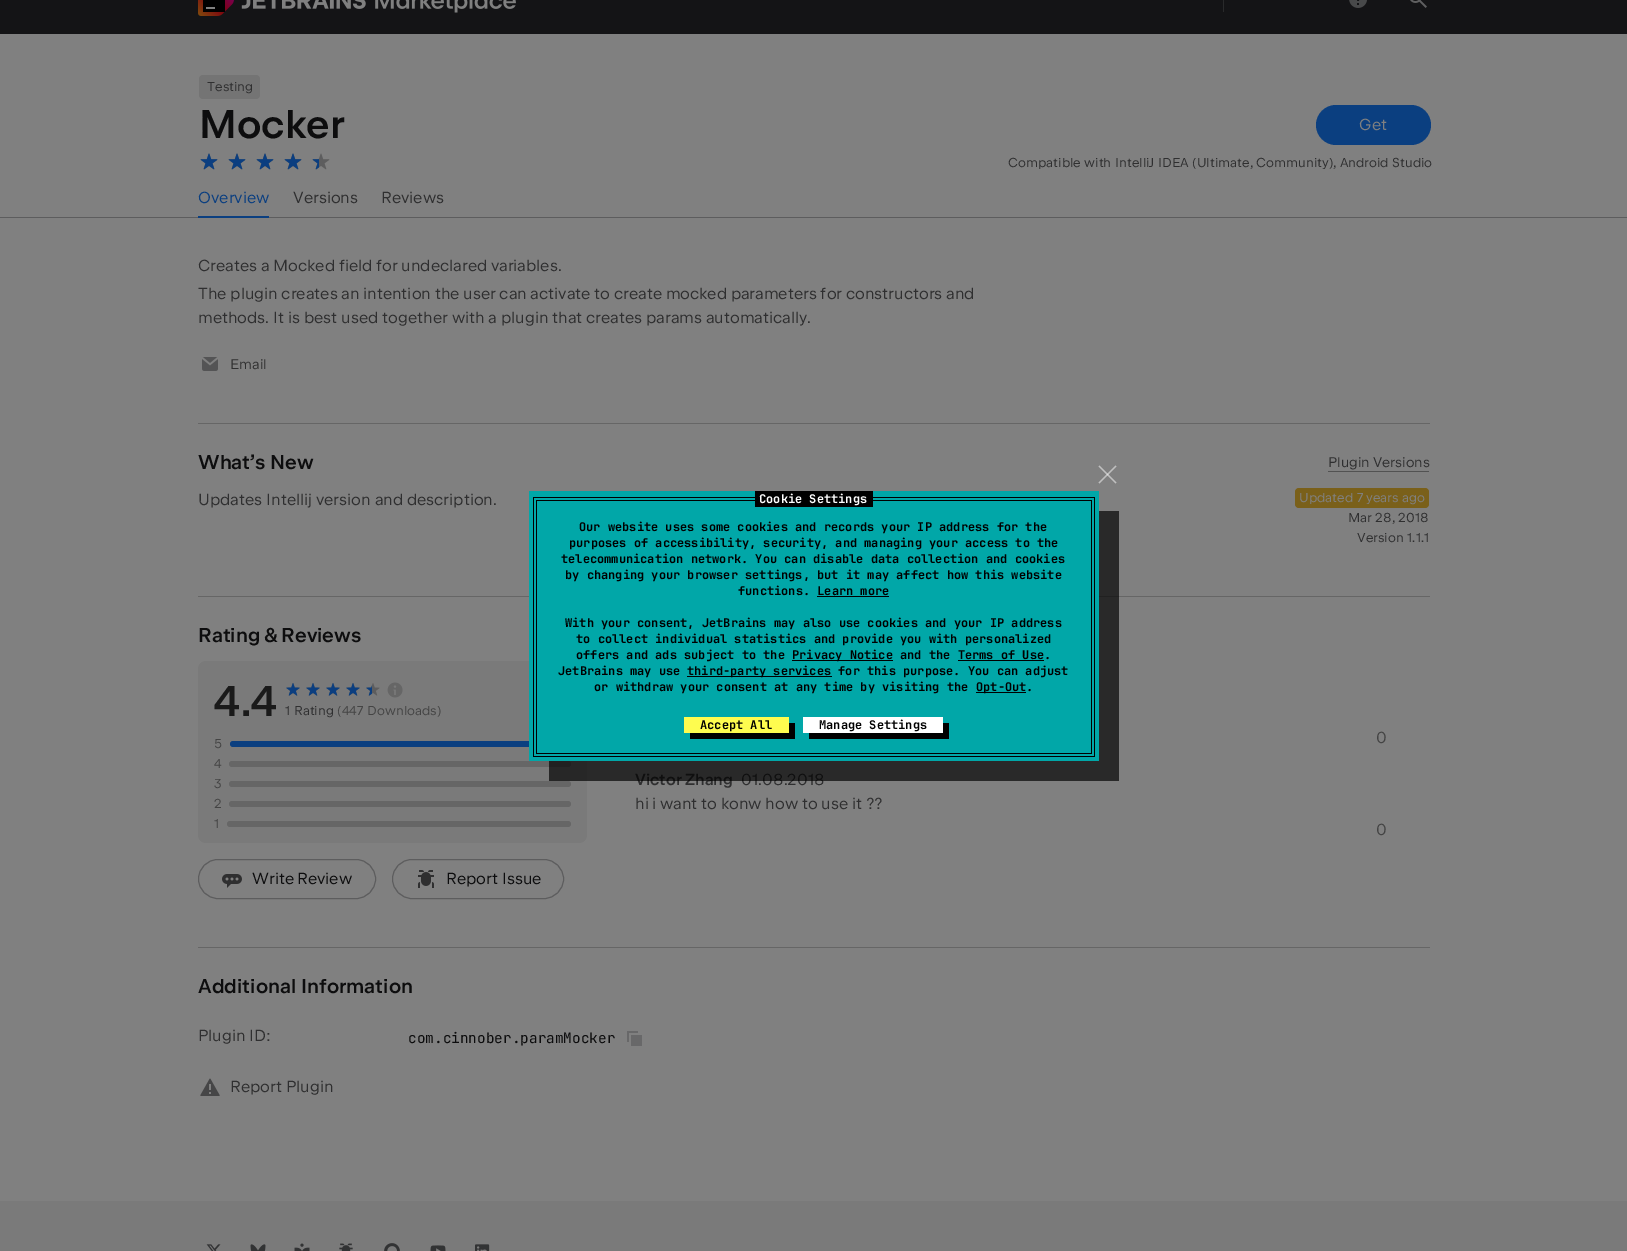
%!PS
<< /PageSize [1627 1251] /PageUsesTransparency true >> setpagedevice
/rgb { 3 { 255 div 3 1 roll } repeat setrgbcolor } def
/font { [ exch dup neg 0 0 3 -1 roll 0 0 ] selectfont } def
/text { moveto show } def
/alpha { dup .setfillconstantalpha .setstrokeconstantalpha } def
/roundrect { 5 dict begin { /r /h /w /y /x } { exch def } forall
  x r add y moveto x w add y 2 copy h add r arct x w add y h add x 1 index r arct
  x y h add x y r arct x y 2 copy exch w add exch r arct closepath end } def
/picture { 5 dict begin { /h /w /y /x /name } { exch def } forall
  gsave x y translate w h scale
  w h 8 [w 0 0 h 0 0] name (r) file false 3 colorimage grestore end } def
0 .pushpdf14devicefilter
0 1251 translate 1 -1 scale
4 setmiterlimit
128 128 128 rgb
0 0 1627 1251 rectfill
93 93 94 rgb
0 217 1627 1 rectfill
20 20 22 rgb
0 0 1627 34 rectfill
(img_01.rgb) 198 0 318 16 picture
41 42 43 rgb
1223 0 1 12 rectfill
(img_02.rgb) 1349 0 18 8 picture
(img_03.rgb) 1410 0 17 8 picture
116 116 116 rgb
199 75 61 24 4 roundrect fill
(img_04.rgb) 200 153 18 17 picture
(img_05.rgb) 200 153 18 17 picture
(img_04.rgb) 228 153 18 17 picture
(img_05.rgb) 228 153 18 17 picture
(img_04.rgb) 256 153 18 17 picture
(img_05.rgb) 256 153 18 17 picture
(img_04.rgb) 284 153 18 17 picture
(img_05.rgb) 284 153 18 17 picture
(img_04.rgb) 312 153 18 17 picture
(img_06.rgb) 312 158 7 12 picture
11 63 128 rgb
1316 105 115 40 20 roundrect fill
198 216 71 2 rectfill
(img_07.rgb) 202 357 16 14 picture
102 102 102 rgb
198 423 1232 1 rectfill
82 82 82 rgb
1328 471 101 1 rectfill
122 96 26 rgb
1295 488 134 20 4 roundrect fill
102 102 102 rgb
198 596 1232 1 rectfill
122 122 122 rgb
198 661 389 182 8 roundrect fill
(img_08.rgb) 286 683 14 13 picture
(img_09.rgb) 286 683 14 13 picture
(img_08.rgb) 306 683 14 13 picture
(img_09.rgb) 306 683 14 13 picture
(img_08.rgb) 326 683 14 13 picture
(img_09.rgb) 326 683 14 13 picture
(img_08.rgb) 346 683 14 13 picture
(img_09.rgb) 346 683 14 13 picture
(img_08.rgb) 366 683 14 13 picture
(img_10.rgb) 366 685 6 11 picture
(img_11.rgb) 387 682 16 16 picture
11 63 128 rgb
230 741 341 6 3 roundrect fill
102 102 102 rgb
229 761 342 6 3 roundrect fill
229 781 342 6 3 roundrect fill
229 801 342 6 3 roundrect fill
227 821 344 6 3 roundrect fill
(img_12.rgb) 222 874 20 14 picture
93 93 94 rgb
198.5 859.5 177 39 19.5 roundrect stroke
(img_13.rgb) 418 870 16 18 picture
392.5 859.5 171 39 19.5 roundrect stroke
102 102 102 rgb
198 947 1232 1 rectfill
(img_14.rgb) 627 1031 15 15 picture
(img_15.rgb) 200 1078 20 18 picture
122 122 122 rgb
0 1201 1627 50 rectfill
(img_16.rgb) 206 1244 15 7 picture
(img_17.rgb) 250 1244 16 7 picture
(img_18.rgb) 294 1243 16 8 picture
(img_19.rgb) 339 1243 14 8 picture
(img_20.rgb) 384 1243 16 8 picture
(img_21.rgb) 430 1245 16 6 picture
(img_22.rgb) 475 1244 15 7 picture
191 191 191 rgb
1098.5 482.5 moveto 17 -17 rlineto 1 1 rlineto -17 17 rlineto closepath fill
0.5 alpha
255 255 255 rgb
1099.5 465.5 moveto 17 17 rlineto -1 1 rlineto -17 -17 rlineto closepath fill
/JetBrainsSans-Regular 13 font
1 alpha
47 47 48 rgb
207 91 moveto 0.05 0 (Testing) ashow
/JetBrainsSans-Medium 40 font
13 13 14 rgb
(Mocker) 199 138 text
/JetBrainsSans-Regular 16 font
128 128 128 rgb
(Get) 1359 130 text
/JetBrainsSans-Regular 13 font
47 47 48 rgb
1008 167 moveto 0.05 0 (Compatible with) ashow
1115 167 moveto 0.05 0 (IntelliJ IDEA \(Ultimate, Community\), Android Studio) ashow
/JetBrainsSans-Regular 16 font
11 63 128 rgb
(Overview) 198 203 text
47 47 48 rgb
(Versions) 293 203 text
(Reviews) 381 203 text
198 271 moveto -0.25 0 32 (Creates a Mocked field for undeclared variables.) widthshow
198 299 moveto -0.25 0 32 (The plugin creates an intention the user can activate to create mocked parameters for constructors and) widthshow
198 323 moveto -0.1 0 32 (methods. It is best used together with a plugin that creates params automatically.) widthshow
/JetBrainsSans-Regular 14 font
(Email) 230 369 text
/JetBrainsSans-Medium 20 font
13 13 14 rgb
(What’s New) 198 469 text
/JetBrainsSans-Regular 14 font
47 47 48 rgb
(Plugin Versions) 1328 467 text
/JetBrainsSans-Regular 16 font
(Updates Intellij version and description.) 198 505 text
/JetBrainsSans-Regular 13 font
128 128 128 rgb
1299 502 moveto 0.05 0 (Updated 7 years ago) ashow
47 47 48 rgb
1348 522 moveto 0.05 0 (Mar 28, 2018) ashow
1357 542 moveto 0.05 0 (Version 1.1.1) ashow
/JetBrainsSans-Medium 20 font
13 13 14 rgb
198 642 moveto -1 0 32 (Rating & Reviews) widthshow
/JetBrainsSans-SemiBold 43 font
26 26 26 rgb
(4.4) 214 716 text
/JetBrainsSans-Regular 13 font
47 47 48 rgb
285 715 moveto 0.05 0 (1 Rating) ashow
68 68 68 rgb
337 715 moveto 0.05 0 (\(447 Downloads\)) ashow
214 748 moveto 0.05 0 (5) ashow
214 768 moveto 0.05 0 (4) ashow
214 788 moveto 0.05 0 (3) ashow
214 808 moveto 0.05 0 (2) ashow
214 828 moveto 0.05 0 (1) ashow
/JetBrainsSans-Regular 16 font
13 13 14 rgb
252 884 moveto -1 0 32 (Write Review) widthshow
(Report Issue) 446 884 text
68 68 68 rgb
(0) 1376 743 text
/JetBrainsSans-Medium 16 font
47 47 48 rgb
(Victor Zhang) 635 785 text
/JetBrainsSans-Regular 16 font
(01.08.2018) 741 785 text
(hi) 635 809 text
(i want to) 652 809 text
721 809 moveto -0.25 0 32 (konw how to use it ??) widthshow
68 68 68 rgb
(0) 1376 835 text
/JetBrainsSans-Medium 20 font
13 13 14 rgb
(Additional Information) 198 993 text
/JetBrainsSans-Regular 16 font
47 47 48 rgb
(Plugin ID:) 198 1041 text
/JetBrainsMono-Regular 14.4 font
13 13 14 rgb
(com.cinnober.paramMocker) 408 1043 text
/JetBrainsSans-Regular 16 font
47 47 48 rgb
(Report Plugin) 230 1092 text
0.68 alpha
0 0 0 rgb
549 761 moveto 0 20 rlineto 570 0 rlineto 0 -270 rlineto -20 0 rlineto 0 250 rlineto closepath fill
1 alpha
1 167 168 rgb
529 491 570 270 rectfill
0 0 0 rgb
536 500 556 1 rectfill
1091 500 1 254 rectfill
536 500 1 217 rectfill
533 497 562 1 rectfill
755 491 118 16 rectfill
/JetBrainsMono-Bold 12 font
255 255 255 rgb
(Cookie Settings) 759 503 text
0 0 0 rgb
1094 497 1 260 rectfill
533 497 1 219 rectfill
(Our website uses some cookies and records your IP address for the) 579 531 text
(purposes of accessibility, security, and managing your access to the) 569 547 text
(telecommunication network. You can disable data collection and cookies) 561 563 text
(by changing your browser settings, but it may affect how this website) 565 579 text
(functions. Learn more) 738 595 text
817 596 72 1 rectfill
(With your consent, JetBrains may also use cookies and your IP address) 565 627 text
(to collect individual statistics and provide you with personalized) 576 643 text
(offers and ads subject to the) 576 659 text
792 660 101 1 rectfill
(Privacy Notice and the Terms of Use.) 792 659 text
958 660 86 1 rectfill
(JetBrains may use) 558 675 text
687 676 145 1 rectfill
(third-party services for this purpose. You can adjust) 687 675 text
(or withdraw your consent at any time by visiting the) 594 691 text
976 692 50 1 rectfill
(Opt-Out.) 976 691 text
536 753 556 1 rectfill
536 717 1 37 rectfill
533 756 562 1 rectfill
533 716 1 41 rectfill
690 733 moveto 0 6 rlineto 105 0 rlineto 0 -16 rlineto -6 0 rlineto 0 10 rlineto closepath fill
254 252 79 rgb
684 717 105 16 rectfill
0 0 0 rgb
(Accept All) 700 729 text
809 733 moveto 0 6 rlineto 140 0 rlineto 0 -16 rlineto -6 0 rlineto 0 10 rlineto closepath fill
255 255 255 rgb
803 717 140 16 rectfill
0 0 0 rgb
(Manage Settings) 819 729 text
.poppdf14devicefilter showpage
